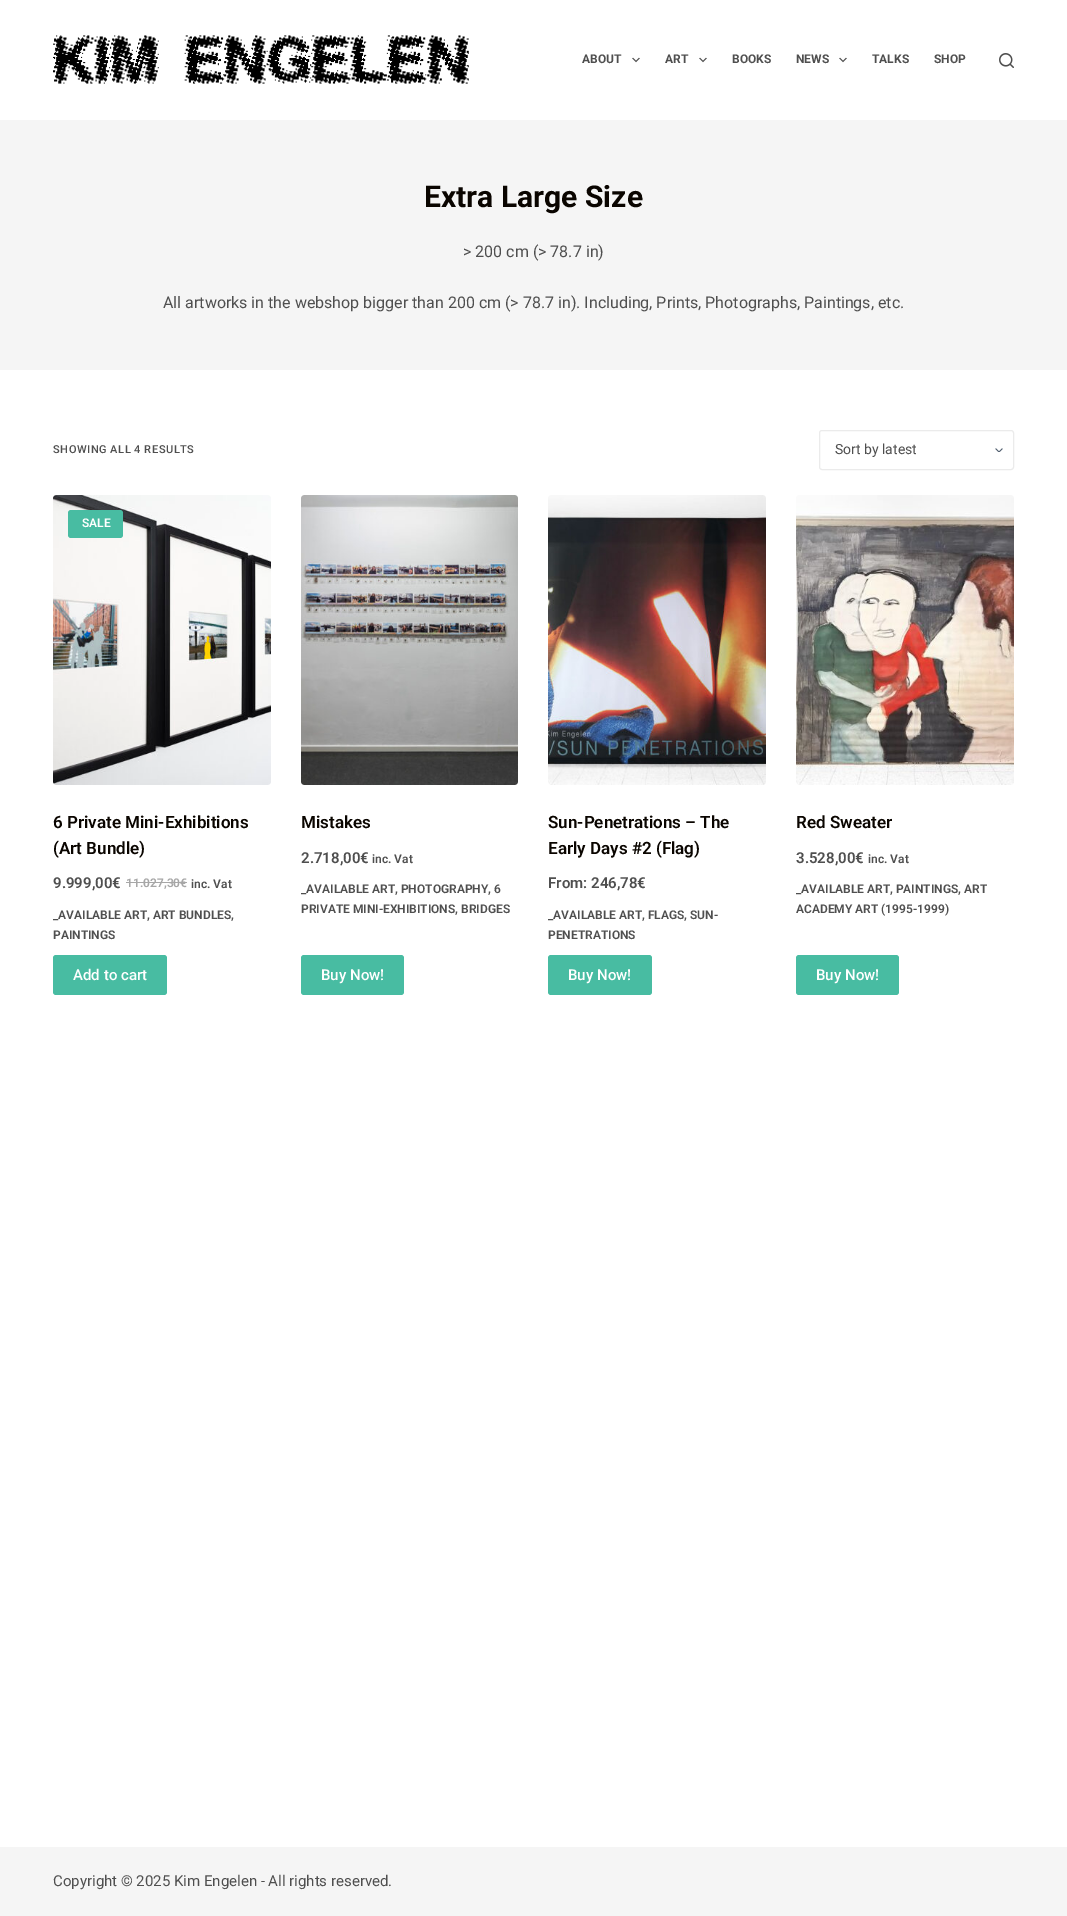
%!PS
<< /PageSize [1067 1916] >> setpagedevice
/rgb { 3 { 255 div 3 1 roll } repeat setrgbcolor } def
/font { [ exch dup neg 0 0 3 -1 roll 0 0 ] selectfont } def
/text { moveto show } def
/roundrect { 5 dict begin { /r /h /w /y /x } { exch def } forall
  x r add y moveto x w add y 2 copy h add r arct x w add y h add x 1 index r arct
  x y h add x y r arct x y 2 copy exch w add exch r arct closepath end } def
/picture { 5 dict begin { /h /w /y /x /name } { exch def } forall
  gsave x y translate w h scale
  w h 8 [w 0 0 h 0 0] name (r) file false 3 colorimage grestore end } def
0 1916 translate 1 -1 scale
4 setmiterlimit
255 255 255 rgb
0 0 1067 1916 rectfill
(img_01.rgb) 53 35 416 49 picture
(img_02.rgb) 632 57 8 6 picture
(img_02.rgb) 699 57 8 6 picture
(img_02.rgb) 839 57 8 6 picture
(img_03.rgb) 999 53 15 15 picture
245 245 245 rgb
0 120 1067 250 rectfill
(img_04.rgb) 995 448 8 4 picture
235 235 235 rgb
819.5 430.5 194 39 2.5 roundrect stroke
(img_05.rgb) 53 495 218 290 picture
72 188 162 rgb
68 510 55 28 3 roundrect fill
167 167 167 rgb
126 882 61 1 rectfill
72 188 162 rgb
53 955 114 40 3 roundrect fill
(img_06.rgb) 301 495 217 290 picture
301 955 103 40 3 roundrect fill
(img_07.rgb) 548 495 218 290 picture
548 955 104 40 3 roundrect fill
(img_08.rgb) 796 495 218 290 picture
796 955 103 40 3 roundrect fill
245 245 245 rgb
0 1847 1067 69 rectfill
/Roboto-Bold 12 font
79 79 79 rgb
(ABOUT) 582 63 text
(ART) 665 63 text
(BOOKS) 732 63 text
(NEWS) 796 63 text
(TALKS) 872 63 text
(SHOP) 934 63 text
/Roboto-Bold 30 font
10 5 0 rgb
(Extra Large Size) 424 207 text
/Roboto-Regular 16 font
79 79 79 rgb
(> 200 cm \(> 78.7 in\)) 463 257 text
(All artworks in the webshop bigger than 200 cm \(> 78.7 in\). Including, Prints, Photographs, Paintings, etc.) 163 308 text
/Roboto-Medium 11 font
53 453 moveto 0.55 0 (SHOWING ALL 4 RESULTS) ashow
/Roboto-Regular 14 font
(Sort by latest) 835 454 text
/Roboto-SemiBold 12 font
255 255 255 rgb
(SALE) 82 527 text
/Roboto-SemiBold 17 font
10 5 0 rgb
(6 Private Mini-Exhibitions) 53 828 text
(\(Art Bundle\)) 53 854 text
/Roboto-SemiBold 15 font
79 79 79 rgb
(9.999,00€) 53 888 text
/Roboto-SemiBold 12 font
167 167 167 rgb
(11.027,30€) 126 887 text
79 79 79 rgb
(inc. Vat) 191 888 text
(_AVAILABLE ART, ART BUNDLES,) 53 919 text
(PAINTINGS) 53 939 text
/Roboto-Medium 15 font
255 255 255 rgb
(Add to cart) 73 980 text
/Roboto-SemiBold 17 font
10 5 0 rgb
(Mistakes) 301 828 text
/Roboto-SemiBold 15 font
79 79 79 rgb
(2.718,00€) 301 863 text
/Roboto-SemiBold 12 font
(inc. Vat) 372 863 text
(_AVAILABLE ART, PHOTOGRAPHY, 6) 301 893 text
(PRIVATE MINI-EXHIBITIONS, BRIDGES) 301 913 text
/Roboto-Medium 15 font
255 255 255 rgb
(Buy Now!) 321 980 text
/Roboto-SemiBold 17 font
10 5 0 rgb
(Sun-Penetrations – The) 548 828 text
(Early Days #2 \(Flag\)) 548 854 text
/Roboto-SemiBold 15 font
79 79 79 rgb
(From: 246,78€) 548 888 text
/Roboto-SemiBold 12 font
(_AVAILABLE ART, FLAGS, SUN-) 548 919 text
(PENETRATIONS) 548 939 text
/Roboto-Medium 15 font
255 255 255 rgb
(Buy Now!) 568 980 text
/Roboto-SemiBold 17 font
10 5 0 rgb
(Red Sweater) 796 828 text
/Roboto-SemiBold 15 font
79 79 79 rgb
(3.528,00€) 796 863 text
/Roboto-SemiBold 12 font
(inc. Vat) 868 863 text
(_AVAILABLE ART, PAINTINGS, ART) 796 893 text
(ACADEMY ART \(1995-1999\)) 796 913 text
/Roboto-Medium 15 font
255 255 255 rgb
(Buy Now!) 816 980 text
/Roboto-Regular 15 font
79 79 79 rgb
(Copyright © 2025 Kim Engelen - All rights reserved.) 53 1886 text
showpage
